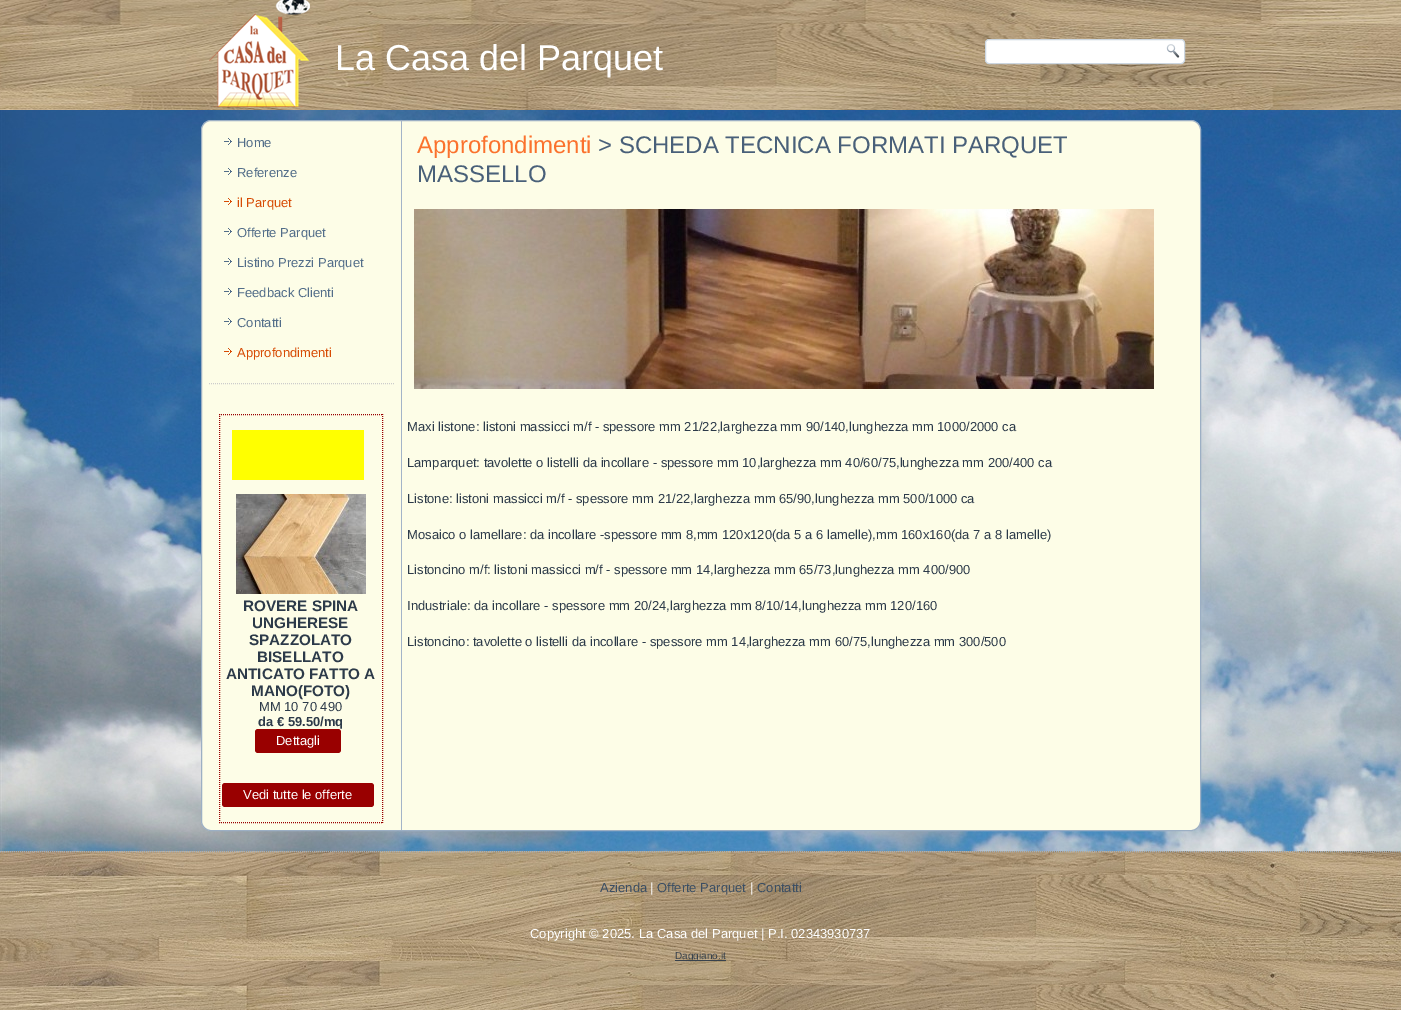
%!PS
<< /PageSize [1401 1010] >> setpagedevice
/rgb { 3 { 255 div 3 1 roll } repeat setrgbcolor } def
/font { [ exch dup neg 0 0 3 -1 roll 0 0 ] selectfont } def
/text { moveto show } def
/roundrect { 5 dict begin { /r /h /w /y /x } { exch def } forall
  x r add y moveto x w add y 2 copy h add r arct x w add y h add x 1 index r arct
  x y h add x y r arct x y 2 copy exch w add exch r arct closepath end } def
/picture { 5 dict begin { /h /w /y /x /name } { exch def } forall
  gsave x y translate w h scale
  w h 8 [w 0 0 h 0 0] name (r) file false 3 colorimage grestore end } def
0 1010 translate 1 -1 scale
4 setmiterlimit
255 255 255 rgb
0 0 1401 1010 rectfill
(img_01.rgb) 0 110 1401 741 picture
(img_02.rgb) 0 0 1401 110 picture
(img_03.rgb) 209 0 101 107 picture
985.5 39.5 199 24 3.5 roundrect gsave fill grestore
204 214 224 rgb
stroke
(img_04.rgb) 1166 44 14 14 picture
253 253 231 rgb
201.5 120.5 999 710 9.5 roundrect gsave fill grestore
156 175 196 rgb
stroke
163 180 200 rgb
401 121 1 709 rectfill
(img_05.rgb) 224 138 8 7 picture
(img_05.rgb) 224 168 8 7 picture
(img_06.rgb) 224 198 8 7 picture
(img_05.rgb) 224 228 8 7 picture
(img_05.rgb) 224 258 8 7 picture
(img_05.rgb) 224 288 8 7 picture
(img_05.rgb) 224 318 8 7 picture
(img_06.rgb) 224 348 8 7 picture
204 204 204 rgb
[1 1] 0 setdash
209 383.5 moveto 185 0 rlineto stroke
153 0 0 rgb
219 414.5 moveto 164 0 rlineto stroke
382.5 414 moveto 0 409 rlineto stroke
219 822.5 moveto 164 0 rlineto stroke
219.5 414 moveto 0 409 rlineto stroke
255 255 0 rgb
232 430 132 50 rectfill
(img_07.rgb) 236 494 130 100 picture
153 0 0 rgb
255 729 86 24 3 roundrect fill
222 783 152 24 3 roundrect fill
(img_08.rgb) 414 209 740 180 picture
(img_09.rgb) 0 851 1401 159 picture
156 175 196 rgb
0 851.5 moveto 1401 0 rlineto stroke
56 66 76 rgb
675 960 51 1 rectfill
/LiberationSans-Regular 36 font
255 255 255 rgb
(La Casa del Parquet) 335 70 text
/LiberationSans-Regular 13 font
82 109 137 rgb
(Home) 237 147 text
(Referenze) 237 177 text
215 75 4 rgb
(il Parquet) 237 207 text
82 109 137 rgb
(Offerte Parquet) 237 237 text
(Listino Prezzi Parquet) 237 267 text
(Feedback Clienti) 237 297 text
(Contatti) 237 327 text
215 75 4 rgb
(Approfondimenti) 237 357 text
/LiberationSans-Bold 15.25 font
44 58 73 rgb
(ROVERE SPINA) 243 611 text
(UNGHERESE) 252 628 text
(SPAZZOLATO) 249 645 text
(BISELLATO) 257 662 text
(ANTICATO FATTO A) 226 679 text
(MANO\(FOTO\)) 251 696 text
/LiberationSans-Regular 13 font
(MM 10 70 490) 259 711 text
/LiberationSans-Bold 13 font
(da € 59.50/mq) 258 726 text
/LiberationSans-Regular 13 font
255 255 255 rgb
(Dettagli) 276 745 text
(Vedi tutte le offerte) 243 799 text
/LiberationSans-Regular 24 font
251 114 45 rgb
(Approfondimenti) 417 153 text
73 96 121 rgb
(> SCHEDA TECNICA FORMATI PARQUET) 598 153 text
(MASSELLO) 417 182 text
/LiberationSans-Regular 13 font
44 58 73 rgb
(Maxi listone: listoni massicci m/f - spessore mm 21/22,larghezza mm 90/140,lunghezza mm 1000/2000 ca) 407 431 text
(Lamparquet: tavolette o listelli da incollare - spessore mm 10,larghezza mm 40/60/75,lunghezza mm 200/400 ca) 407 467 text
(Listone: listoni massicci m/f - spessore mm 21/22,larghezza mm 65/90,lunghezza mm 500/1000 ca) 407 503 text
(Mosaico o lamellare: da incollare -spessore mm 8,mm 120x120\(da 5 a 6 lamelle\),mm 160x160\(da 7 a 8 lamelle\)) 407 539 text
(Listoncino m/f: listoni massicci m/f - spessore mm 14,larghezza mm 65/73,lunghezza mm 400/900) 407 574 text
(Industriale: da incollare - spessore mm 20/24,larghezza mm 8/10/14,lunghezza mm 120/160) 407 610 text
(Listoncino: tavolette o listelli da incollare - spessore mm 14,larghezza mm 60/75,lunghezza mm 300/500) 407 646 text
59 78 99 rgb
(Azienda) 600 892 text
255 255 255 rgb
(|) 650 892 text
59 78 99 rgb
(Offerte Parquet) 657 892 text
255 255 255 rgb
(|) 750 892 text
59 78 99 rgb
(Contatti) 757 892 text
255 255 255 rgb
(Copyright © 2025.) 530 938 text
(La Casa del Parquet) 639 938 text
(| P.I. 02343930737) 761 938 text
/LiberationSans-Regular 10 font
56 66 76 rgb
(Daggiano.it) 675 959 text
showpage
